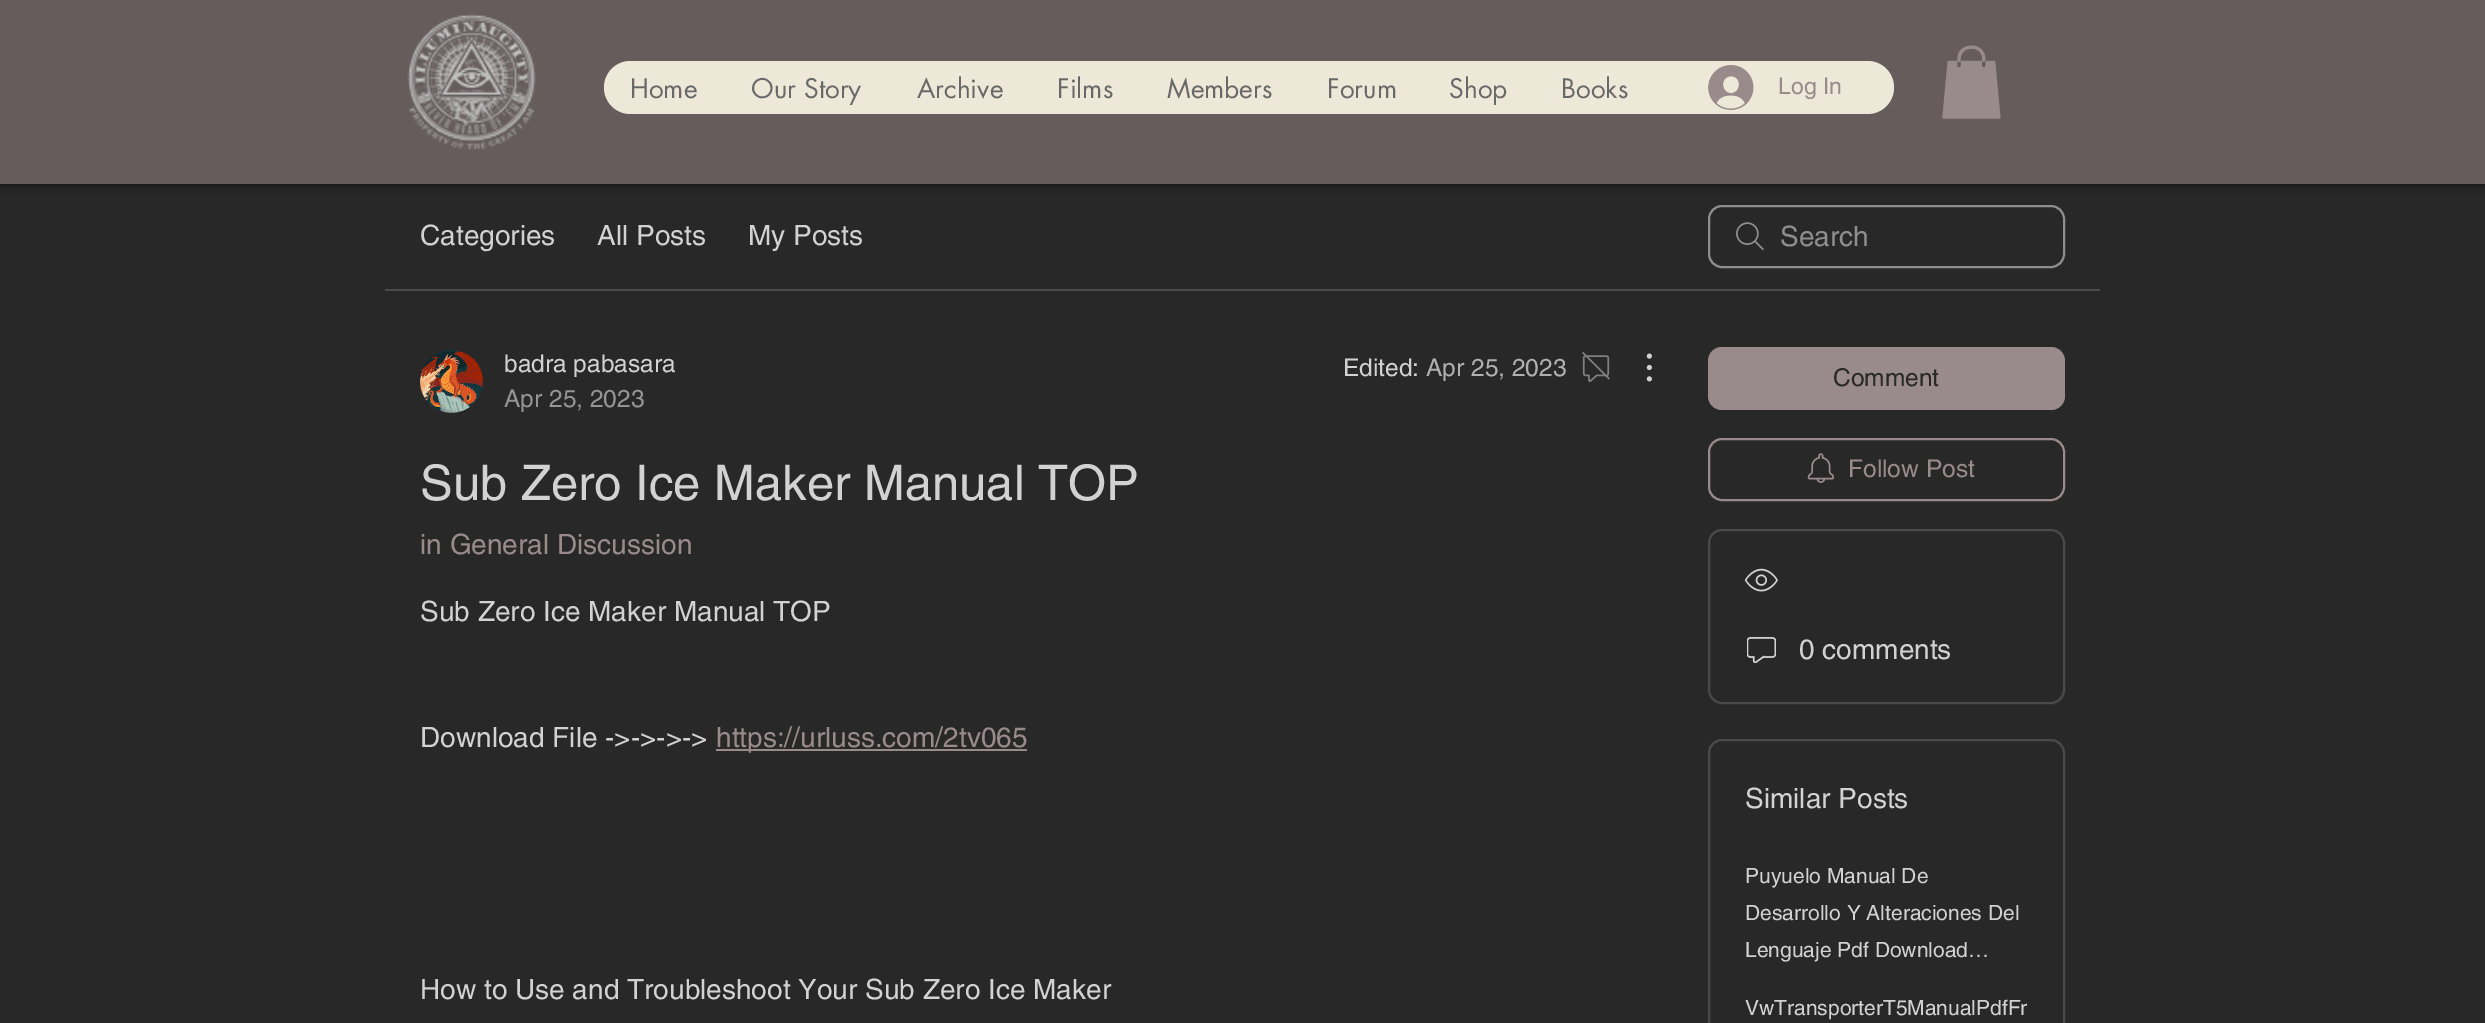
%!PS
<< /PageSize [2485 1023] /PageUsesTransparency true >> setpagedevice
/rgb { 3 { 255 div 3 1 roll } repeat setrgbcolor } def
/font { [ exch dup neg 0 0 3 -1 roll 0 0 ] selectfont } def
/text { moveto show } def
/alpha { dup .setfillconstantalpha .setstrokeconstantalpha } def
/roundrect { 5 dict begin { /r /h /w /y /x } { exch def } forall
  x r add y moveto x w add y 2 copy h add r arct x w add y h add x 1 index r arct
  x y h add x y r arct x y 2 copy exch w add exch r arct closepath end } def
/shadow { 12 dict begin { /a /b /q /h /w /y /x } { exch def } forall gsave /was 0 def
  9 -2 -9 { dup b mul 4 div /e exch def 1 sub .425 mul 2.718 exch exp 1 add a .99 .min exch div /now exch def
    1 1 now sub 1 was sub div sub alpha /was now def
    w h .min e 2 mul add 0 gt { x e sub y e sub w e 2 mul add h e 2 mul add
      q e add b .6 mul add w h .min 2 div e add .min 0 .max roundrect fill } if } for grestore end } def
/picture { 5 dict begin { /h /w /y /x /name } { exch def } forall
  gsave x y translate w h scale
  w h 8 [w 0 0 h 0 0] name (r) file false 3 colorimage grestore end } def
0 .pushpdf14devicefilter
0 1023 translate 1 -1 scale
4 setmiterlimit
41 40 40 rgb
0 0 2485 1023 rectfill
0 0 0 rgb
0 0 2485 184 0 4.5 0.7 shadow
102 92 92 rgb
0 0 2485 184 rectfill
(img_01.rgb) 407 14 129 136 picture
238 232 216 rgb
604 61 1290 53 26.5 roundrect fill
(img_02.rgb) 1708 65 46 45 picture
(img_03.rgb) 1942 45 59 74 picture
75 74 74 rgb
385 289 1715 2 rectfill
(img_04.rgb) 1736 222 28 29 picture
143 142 142 rgb
2 setlinewidth
1709 206 355 61 13 roundrect stroke
(img_05.rgb) 420 350 63 63 picture
(img_06.rgb) 1582 352 28 30 picture
(img_07.rgb) 1646 353 6 29 picture
153 139 139 rgb
716 749 311 2 rectfill
1708 347 357 63 14 roundrect fill
1709 439 355 61 13 roundrect stroke
(img_08.rgb) 1807 453 27 30 picture
75 74 74 rgb
1709 530 355 173 13 roundrect stroke
(img_09.rgb) 1744 568 34 24 picture
(img_10.rgb) 1747 637 29 26 picture
1709 740 355 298 13 roundrect stroke
/futura-Regular 26.25 font
105 105 105 rgb
(Home) 630 98 text
(Our Story) 751 98 text
(Archive) 917 98 text
(Films) 1057 98 text
(Members) 1167 98 text
(Forum) 1327 98 text
(Shop) 1449 98 text
(Books) 1561 98 text
/helvetica-Regular 23 font
153 139 139 rgb
(Log In) 1778 94 text
/helvetica-Regular 28 font
211 210 210 rgb
(Categories) 420 245 text
(All Posts) 597 245 text
(My Posts) 748 245 text
143 142 142 rgb
(Search) 1780 246 text
/helvetica-Regular 24.5 font
211 210 210 rgb
(badra pabasara) 504 372 text
150 149 149 rgb
(Apr 25, 2023) 504 407 text
211 210 210 rgb
(Edited:) 1343 376 text
177 176 176 rgb
(Apr 25, 2023) 1426 376 text
/helvetica-Regular 49 font
211 210 210 rgb
(Sub Zero Ice Maker Manual TOP) 420 500 text
/helvetica-Regular 28 font
153 139 139 rgb
(in General Discussion) 420 554 text
211 210 210 rgb
(Sub Zero Ice Maker Manual TOP) 420 621 text
(Download File ->->->->) 420 747 text
153 139 139 rgb
(https://urluss.com/2tv065) 716 747 text
211 210 210 rgb
(How to Use and Troubleshoot Your Sub Zero Ice Maker) 420 999 text
/helvetica-Regular 24.5 font
41 40 40 rgb
(Comment) 1833 386 text
153 139 139 rgb
(Follow Post) 1848 477 text
/helvetica-Regular 28 font
211 210 210 rgb
(0 comments) 1799 659 text
(Similar Posts) 1745 808 text
/helvetica-Regular 21 font
(Puyuelo Manual De) 1745 883 text
(Desarrollo Y Alteraciones Del) 1745 920 text
(Lenguaje Pdf Download…) 1745 957 text
(VwTransporterT5ManualPdfFr) 1745 1015 text
.poppdf14devicefilter showpage
